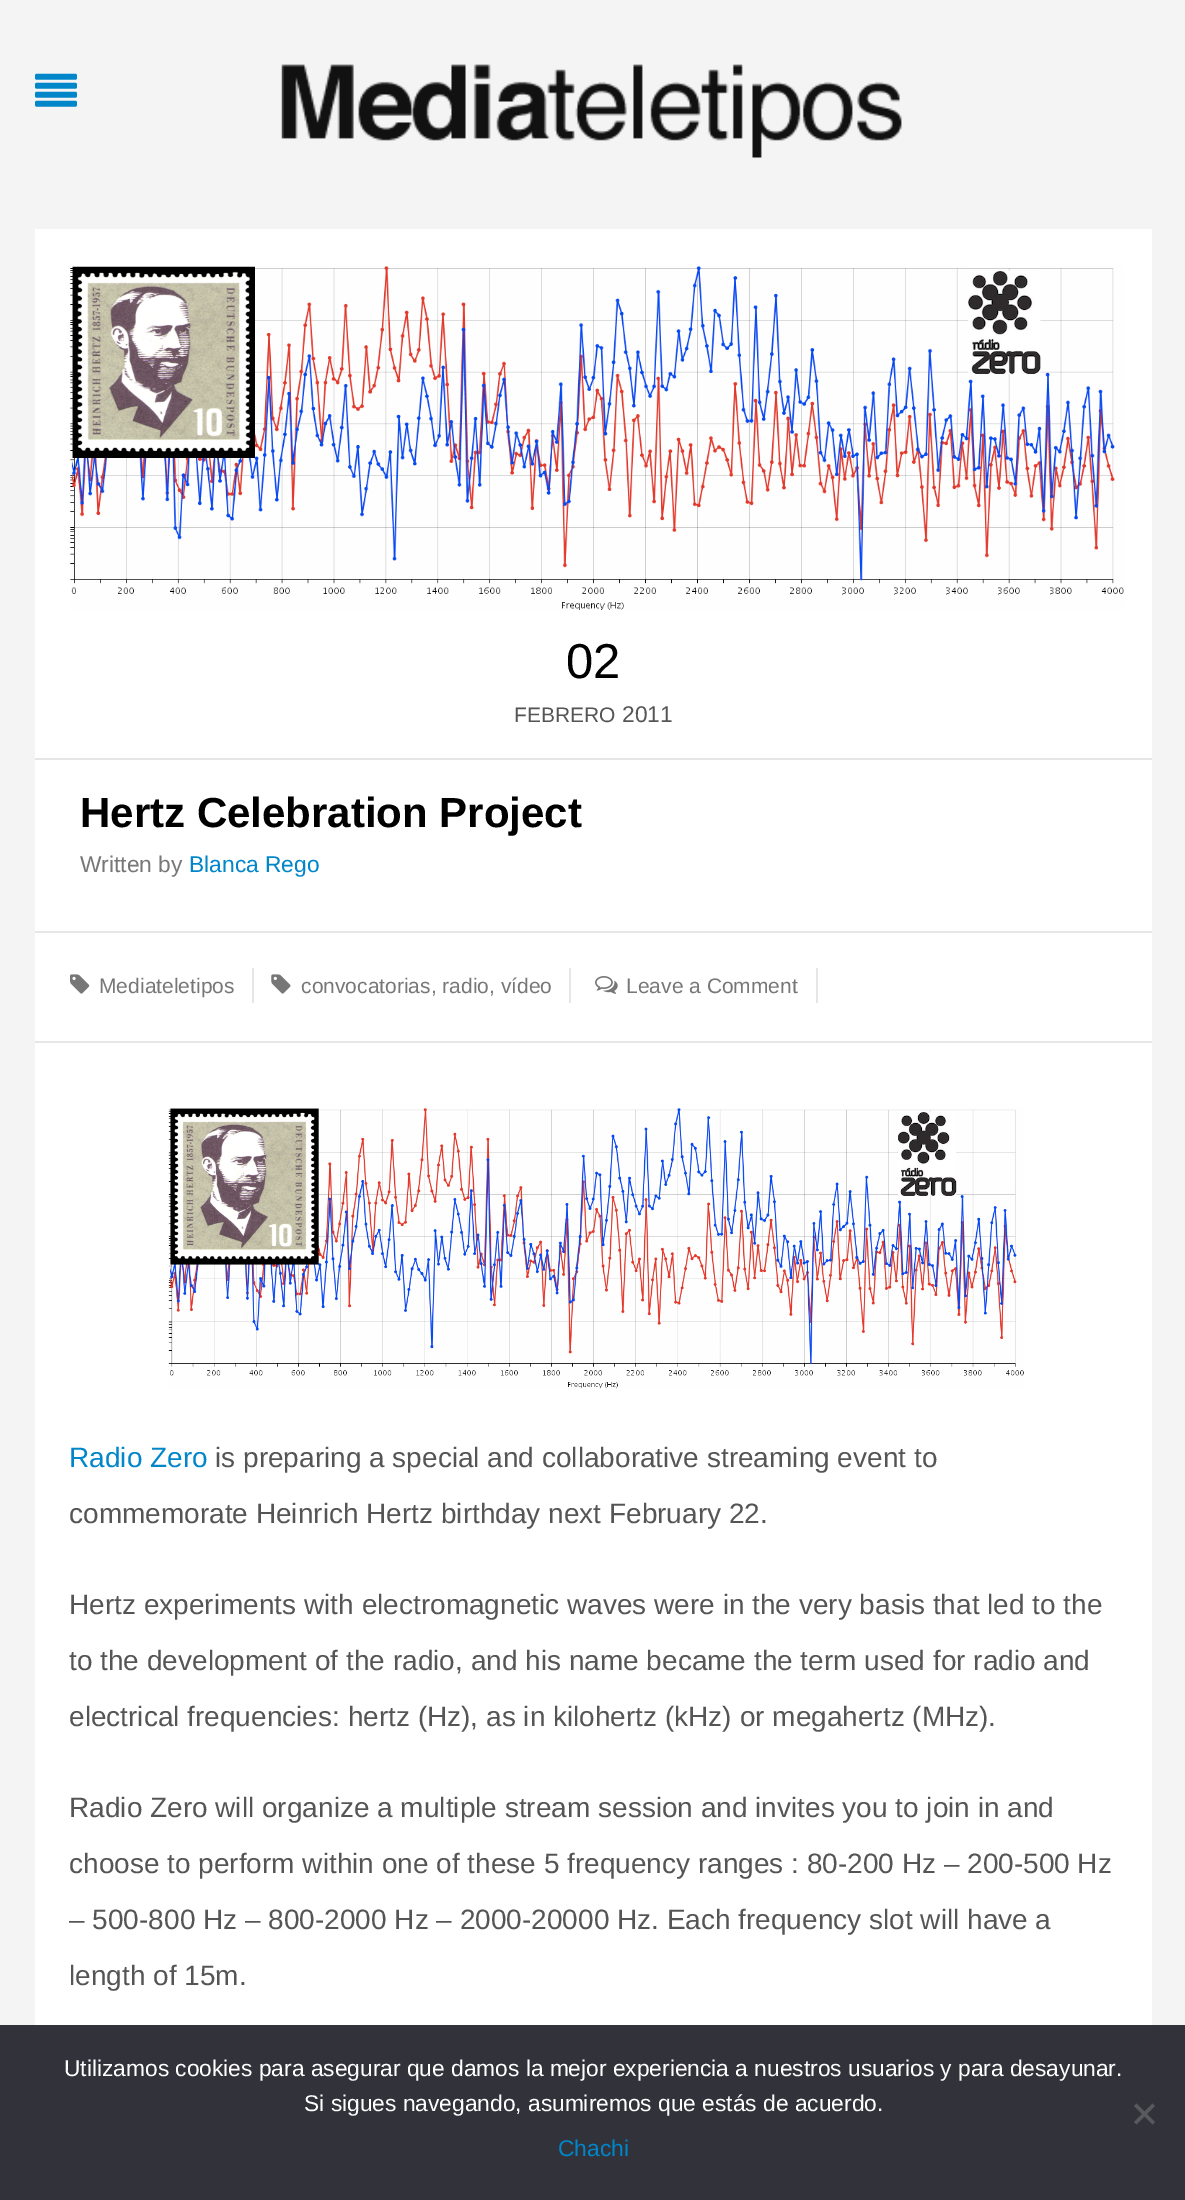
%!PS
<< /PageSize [1185 2200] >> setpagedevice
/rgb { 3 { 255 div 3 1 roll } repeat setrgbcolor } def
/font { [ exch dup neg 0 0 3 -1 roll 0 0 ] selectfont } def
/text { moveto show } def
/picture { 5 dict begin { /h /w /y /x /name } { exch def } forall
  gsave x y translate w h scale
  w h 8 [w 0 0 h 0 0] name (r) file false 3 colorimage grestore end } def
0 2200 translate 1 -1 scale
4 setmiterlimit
244 244 244 rgb
0 0 1185 2200 rectfill
(img_01.rgb) 35 73 42 34 picture
(img_02.rgb) 281 64 621 94 picture
255 255 255 rgb
35 229 1117 1796 rectfill
(img_03.rgb) 70 266 1054 344 picture
230 230 230 rgb
35 931 1117 2 rectfill
35 758 1117 2 rectfill
252 968 2 35 rectfill
(img_04.rgb) 70 974 20 20 picture
569 968 2 35 rectfill
(img_05.rgb) 271 974 20 20 picture
816 968 2 35 rectfill
(img_06.rgb) 595 976 23 18 picture
35 1041 1117 2 rectfill
(img_07.rgb) 168 1108 856 281 picture
50 50 58 rgb
0 2025 1185 175 rectfill
89 89 93 rgb
1152.5 2103.5 moveto 2.5 2.5 rlineto -18.5 18.5 rlineto -2.5 -2.5 rlineto closepath fill
1134 2106 moveto 2.5 -2.5 rlineto 18.5 18.5 rlineto -2.5 2.5 rlineto closepath fill
/LiberationSans-Regular 49 font
0 0 0 rgb
(02) 566 678 text
/LiberationSans-Regular 21 font
85 85 85 rgb
(FEBRERO) 514 722 text
/LiberationSans-Regular 22.75 font
(2011) 622 722 text
/LiberationSans-Bold 42 font
0 0 0 rgb
(Hertz Celebration Project) 80 827 text
/LiberationSans-Regular 22.75 font
119 119 119 rgb
(Written by) 80 872 text
0 134 201 rgb
(Blanca Rego) 189 872 text
/LiberationSans-Regular 21 font
119 119 119 rgb
(Mediateletipos) 99 993 text
(convocatorias, radio, vídeo) 301 993 text
(Leave a Comment) 626 993 text
/LiberationSans-Regular 28 font
0 134 201 rgb
(Radio Zero) 69 1467 text
85 85 85 rgb
(is preparing a special and collaborative streaming event to) 215 1467 text
(commemorate Heinrich Hertz birthday next February 22.) 69 1523 text
(Hertz experiments with electromagnetic waves were in the very basis that led to the) 69 1614 text
(to the development of the radio, and his name became the term used for radio and) 69 1670 text
(electrical frequencies: hertz \(Hz\), as in kilohertz \(kHz\) or megahertz \(MHz\).) 69 1726 text
(Radio Zero will organize a multiple stream session and invites you to join in and) 69 1817 text
(choose to perform within one of these 5 frequency ranges : 80-200 Hz – 200-500 Hz) 69 1873 text
(– 500-800 Hz – 800-2000 Hz – 2000-20000 Hz. Each frequency slot will have a) 69 1929 text
(length of 15m.) 69 1985 text
/LiberationSans-Regular 22.75 font
255 255 255 rgb
(Utilizamos cookies para asegurar que damos la mejor experiencia a nuestros usuarios y para desayunar.) 64 2076 text
(Si sigues navegando, asumiremos que estás de acuerdo.) 304 2111 text
0 134 201 rgb
(Chachi) 558 2156 text
showpage
